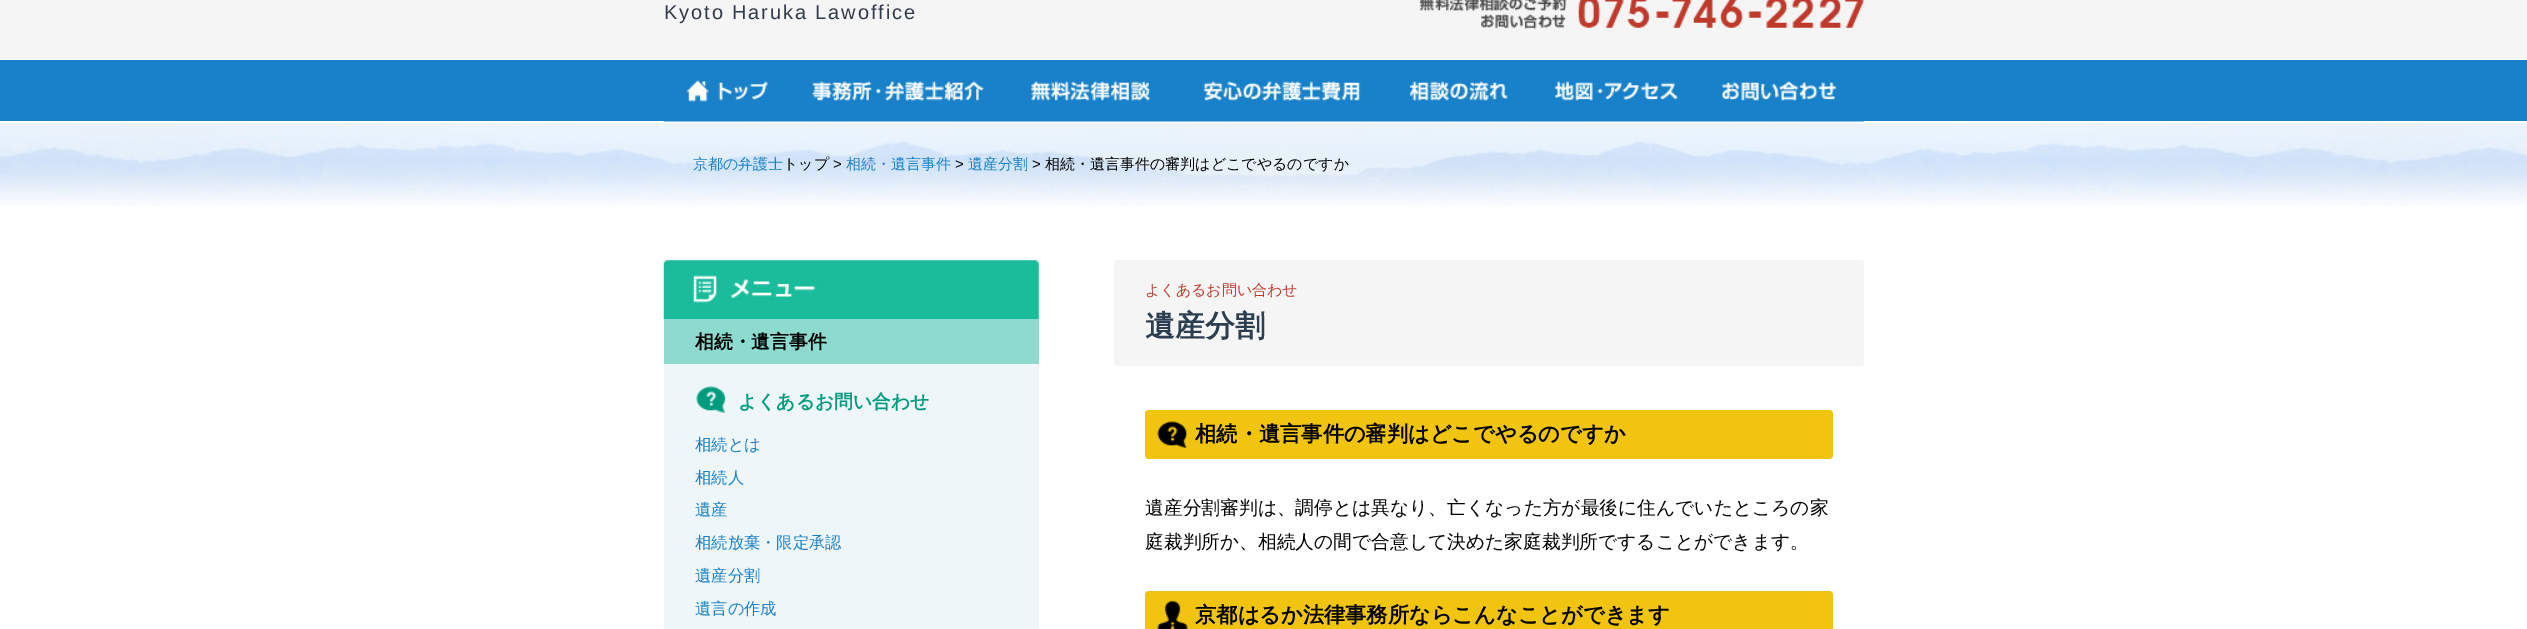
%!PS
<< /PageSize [2527 629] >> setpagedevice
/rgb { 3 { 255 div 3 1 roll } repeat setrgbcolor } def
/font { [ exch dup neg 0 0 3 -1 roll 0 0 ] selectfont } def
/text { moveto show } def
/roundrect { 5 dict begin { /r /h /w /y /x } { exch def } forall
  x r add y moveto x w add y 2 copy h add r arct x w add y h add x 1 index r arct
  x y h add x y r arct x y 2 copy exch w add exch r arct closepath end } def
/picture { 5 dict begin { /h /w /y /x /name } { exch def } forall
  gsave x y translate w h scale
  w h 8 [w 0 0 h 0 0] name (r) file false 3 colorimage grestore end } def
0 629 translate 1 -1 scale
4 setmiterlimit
255 255 255 rgb
0 0 2527 629 rectfill
245 245 245 rgb
0 0 2527 59 rectfill
(img_01.rgb) 1419 0 445 31 picture
25 129 202 rgb
0 60 2527 61 rectfill
(img_02.rgb) 663 80 127 42 picture
(img_03.rgb) 790 80 218 42 picture
(img_04.rgb) 1007 80 170 42 picture
(img_05.rgb) 1176 80 209 42 picture
(img_06.rgb) 1385 80 148 42 picture
(img_07.rgb) 1532 80 168 42 picture
(img_08.rgb) 1700 80 164 42 picture
(img_09.rgb) 0 122 2527 84 picture
239 246 250 rgb
664 260 375 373 4 roundrect fill
(img_10.rgb) 663 260 376 59 picture
141 219 207 rgb
664 319 375 45 rectfill
(img_11.rgb) 696 386 30 27 picture
245 245 245 rgb
1114 260 750 106 4 roundrect fill
241 196 15 rgb
1145 410 688 49 4 roundrect fill
(img_12.rgb) 1157 421 30 27 picture
1145 591 688 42 4 roundrect fill
(img_13.rgb) 1157 600 31 29 picture
/LiberationSans-Regular 20 font
49 58 73 rgb
664 19 moveto 1.9 0 (Kyoto Haruka Lawoffice) ashow
/WenQuanYiZenHei-Medium 15 font
25 129 201 rgb
(京都の弁護士) 693 169 text
0 0 0 rgb
(トップ) 783 169 text
/LiberationSans-Regular 15 font
(>) 833 169 text
/WenQuanYiZenHei-Medium 15 font
25 129 201 rgb
(相続・遺言事件) 846 169 text
/LiberationSans-Regular 15 font
0 0 0 rgb
(>) 955 169 text
/WenQuanYiZenHei-Medium 15 font
25 129 201 rgb
(遺産分割) 968 169 text
/LiberationSans-Regular 15 font
0 0 0 rgb
(>) 1032 169 text
/WenQuanYiZenHei-Medium 15 font
(相続・遺言事件の審判はどこでやるのですか) 1045 169 text
/WenQuanYiZenHei-Bold 18.75 font
(相続・遺言事件) 695 348 text
0 156 125 rgb
(よくあるお問い合わせ) 738 408 text
/WenQuanYiZenHei-Medium 16.25 font
25 129 201 rgb
(相続とは) 695 450 text
(相続人) 695 483 text
(遺産) 695 515 text
(相続放棄・限定承認) 695 548 text
(遺産分割) 695 581 text
(遺言の作成) 695 614 text
/WenQuanYiZenHei-Medium 15 font
192 57 43 rgb
(よくあるお問い合わせ) 1145 295 text
/WenQuanYiZenHei-Bold 30 font
44 62 80 rgb
(遺産分割) 1145 336 text
/WenQuanYiZenHei-Bold 21.25 font
0 0 0 rgb
(相続・遺言事件の審判はどこでやるのですか) 1195 441 text
/WenQuanYiZenHei-Medium 18.75 font
(遺産分割審判は、調停とは異なり、亡くなった方が最後に住んでいたところの家) 1145 514 text
(庭裁判所か、相続人の間で合意して決めた家庭裁判所ですることができます。) 1145 548 text
/WenQuanYiZenHei-Bold 21.25 font
(京都はるか法律事務所ならこんなことができます) 1195 622 text
showpage
